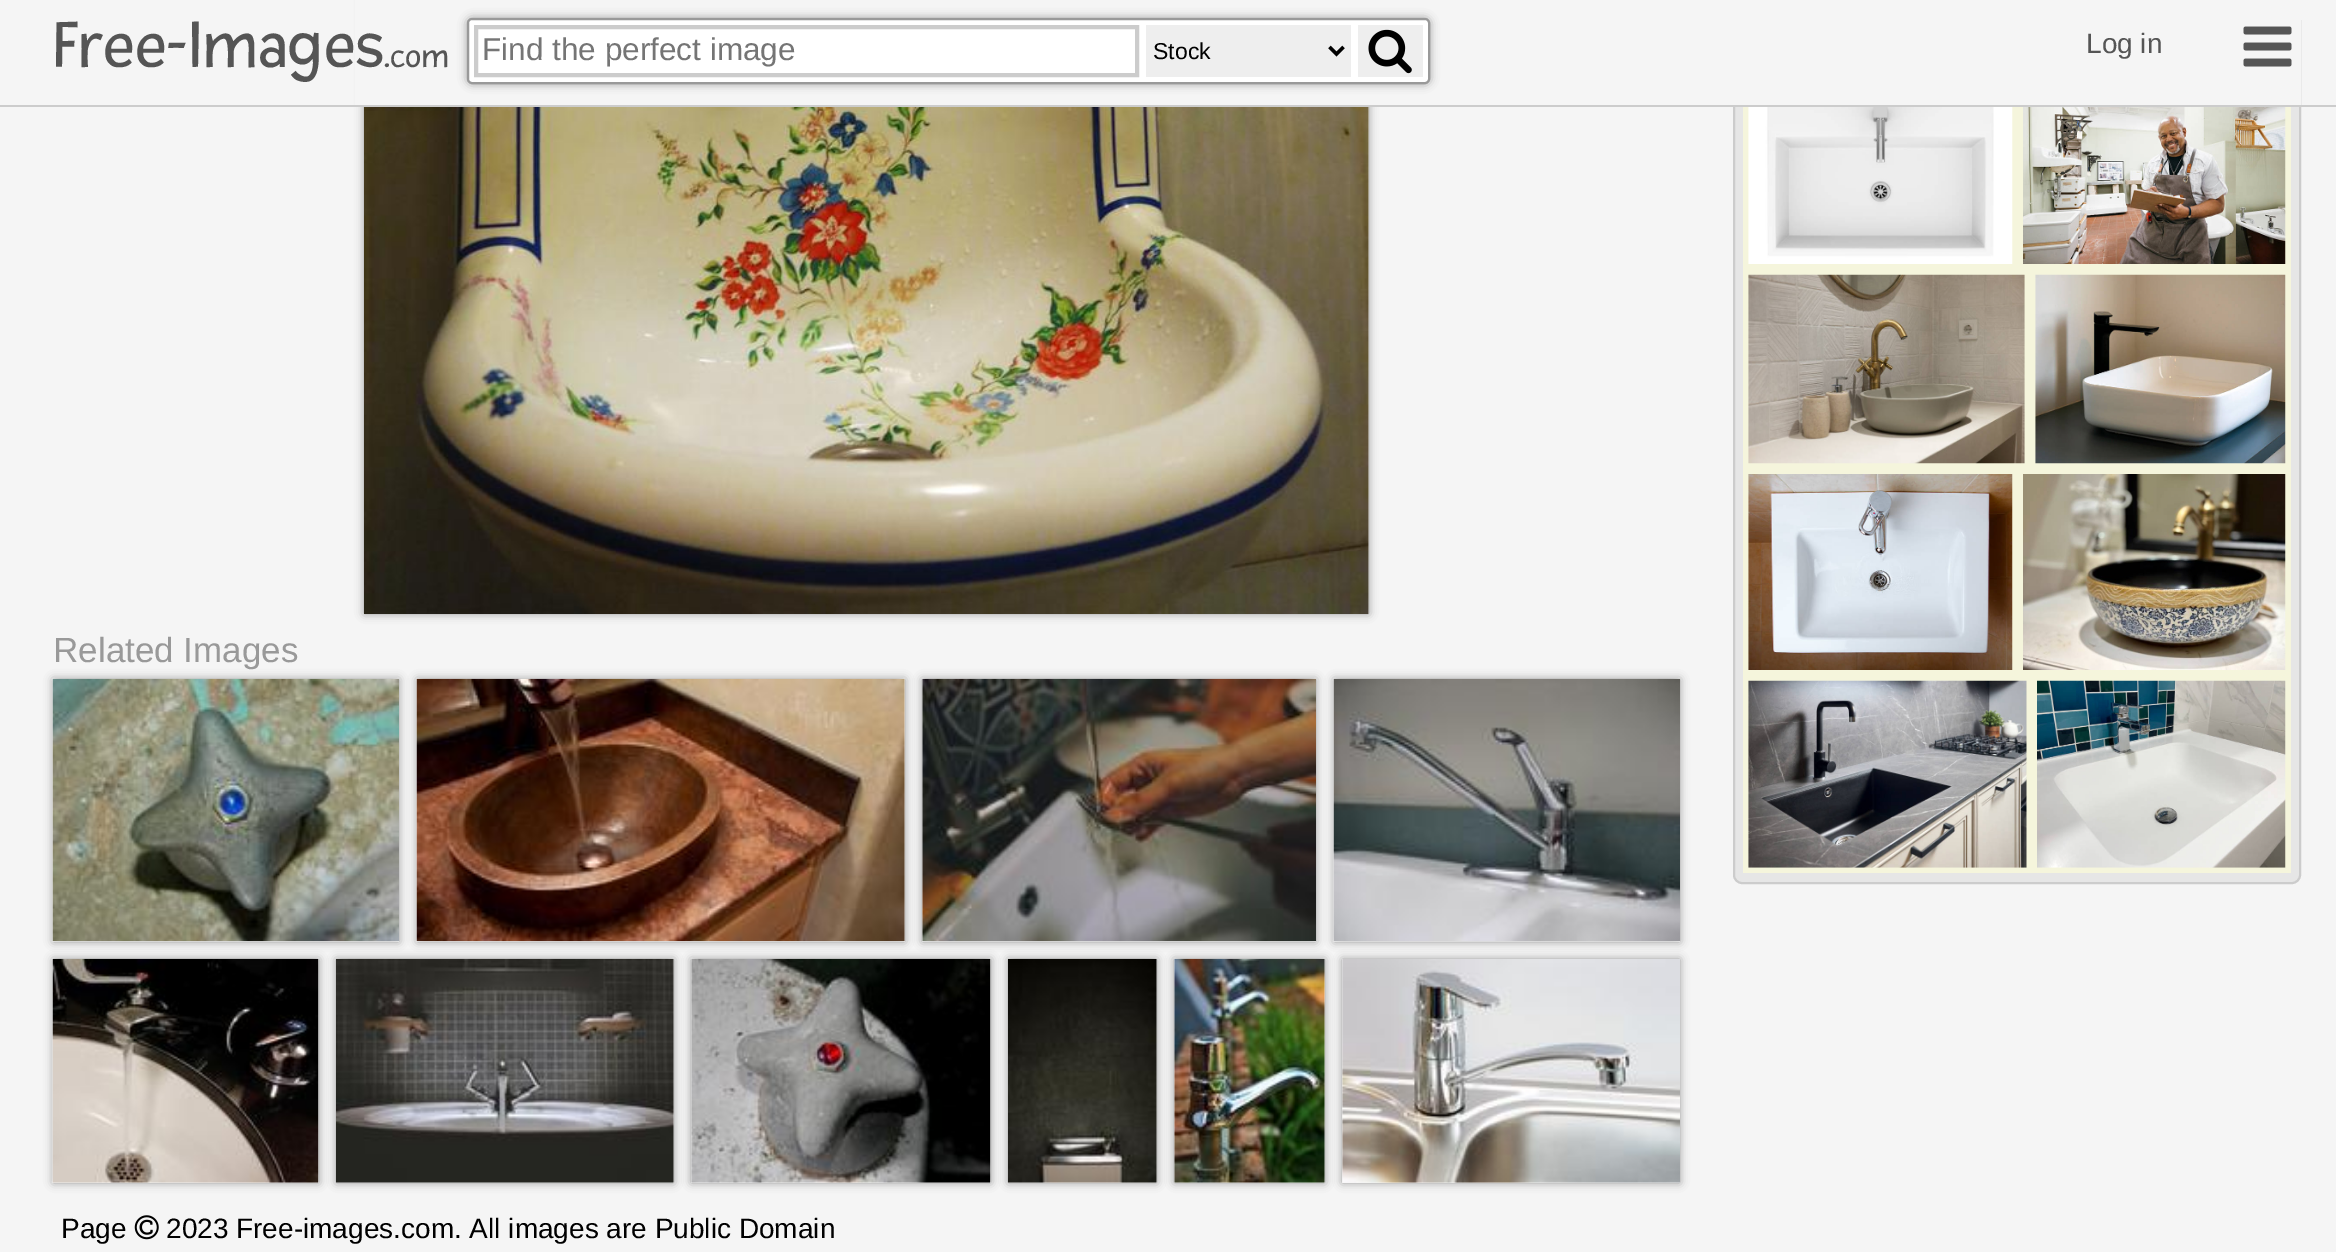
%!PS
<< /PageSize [2336 1252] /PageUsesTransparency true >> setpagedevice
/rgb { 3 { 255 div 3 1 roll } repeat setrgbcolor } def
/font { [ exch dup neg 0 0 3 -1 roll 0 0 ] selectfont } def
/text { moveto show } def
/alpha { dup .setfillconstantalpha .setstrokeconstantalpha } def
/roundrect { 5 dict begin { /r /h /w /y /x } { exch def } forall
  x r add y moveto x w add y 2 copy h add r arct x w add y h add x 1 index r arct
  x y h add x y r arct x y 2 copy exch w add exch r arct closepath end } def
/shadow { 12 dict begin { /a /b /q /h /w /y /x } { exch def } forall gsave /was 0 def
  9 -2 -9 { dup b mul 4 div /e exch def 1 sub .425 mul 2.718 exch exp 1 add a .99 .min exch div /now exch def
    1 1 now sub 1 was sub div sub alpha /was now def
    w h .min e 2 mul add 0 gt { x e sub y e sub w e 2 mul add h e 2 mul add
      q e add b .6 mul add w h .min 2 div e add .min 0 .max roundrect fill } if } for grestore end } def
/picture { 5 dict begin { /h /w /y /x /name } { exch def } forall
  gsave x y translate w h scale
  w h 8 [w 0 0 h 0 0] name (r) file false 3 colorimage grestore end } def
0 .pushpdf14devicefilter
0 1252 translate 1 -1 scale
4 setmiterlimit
245 245 245 rgb
0 0 2336 1252 rectfill
153 153 153 rgb
364 -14 1005 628 0 4.5 1 shadow
230 230 230 rgb
1734 13 566 870 8 roundrect gsave fill grestore
204 204 204 rgb
2 setlinewidth
stroke
245 245 245 rgb
355 0 1946 105 rectfill
204 204 204 rgb
0 105 2336 2 rectfill
153 153 153 rgb
467 18 963 66 5 4.5 1 shadow
255 255 255 rgb
468 19 961 64 4 roundrect gsave fill grestore
153 153 153 rgb
stroke
204 204 204 rgb
4 setlinewidth
476 27 661 48 rectstroke
238 238 238 rgb
1146 25 205 52 rectfill
0 0 0 rgb
3.5 setlinewidth
1329.5 47 moveto 7 7 rlineto 7 -7 rlineto stroke
238 238 238 rgb
1358 25 65 52 rectfill
(img_01.rgb) 1368 29 44 45 picture
(img_02.rgb) 2243 26 49 41 picture
(img_03.rgb) 364 107 1005 507 picture
153 153 153 rgb
53 679 346 263 0 4.5 1 shadow
(img_04.rgb) 52 678 347 264 picture
417 679 488 263 0 4.5 1 shadow
(img_05.rgb) 416 678 489 264 picture
922 679 394 263 0 4.5 1 shadow
(img_06.rgb) 922 678 394 264 picture
1334 679 346 263 0 4.5 1 shadow
(img_07.rgb) 1333 678 347 264 picture
53 959 266 224 0 4.5 1 shadow
(img_08.rgb) 52 958 267 225 picture
336 959 338 224 0 4.5 1 shadow
(img_09.rgb) 336 958 338 225 picture
691 959 300 224 0 4.5 1 shadow
(img_10.rgb) 691 958 300 225 picture
1008 959 149 224 0 4.5 1 shadow
(img_11.rgb) 1008 958 149 225 picture
1174 959 151 224 0 4.5 1 shadow
(img_12.rgb) 1174 958 151 225 picture
1342 959 338 224 0 4.5 1 shadow
(img_13.rgb) 1342 959 338 224 picture
245 245 220 rgb
1743 107 548 766 rectfill
(img_14.rgb) 1748 107 265 157 picture
(img_15.rgb) 2023 107 263 157 picture
(img_16.rgb) 1748 274 277 190 picture
(img_17.rgb) 2035 274 251 190 picture
(img_18.rgb) 1748 474 265 196 picture
(img_19.rgb) 2023 474 263 196 picture
(img_20.rgb) 1748 680 279 188 picture
(img_21.rgb) 2037 680 249 188 picture
(img_22.rgb) 134 1215 25 25 picture
/Fresca-Regular 70 font
85 85 85 rgb
(Free-Images) 53 67 text
/Fresca-Regular 35 font
(.com) 384 67 text
/LiberationSans-Regular 31.5 font
117 117 117 rgb
(Find the perfect image) 482 60 text
/LiberationSans-Regular 23 font
0 0 0 rgb
(Stock) 1153 59 text
/LiberationSans-Regular 28 font
85 85 85 rgb
(Log in) 2086 53 text
/LiberationSans-Regular 35 font
153 153 153 rgb
(Related Images) 53 662 text
/LiberationSans-Regular 28 font
0 0 0 rgb
(Page) 61 1238 text
(2023 Free-images.com. All images are Public Domain) 166 1238 text
.poppdf14devicefilter showpage
